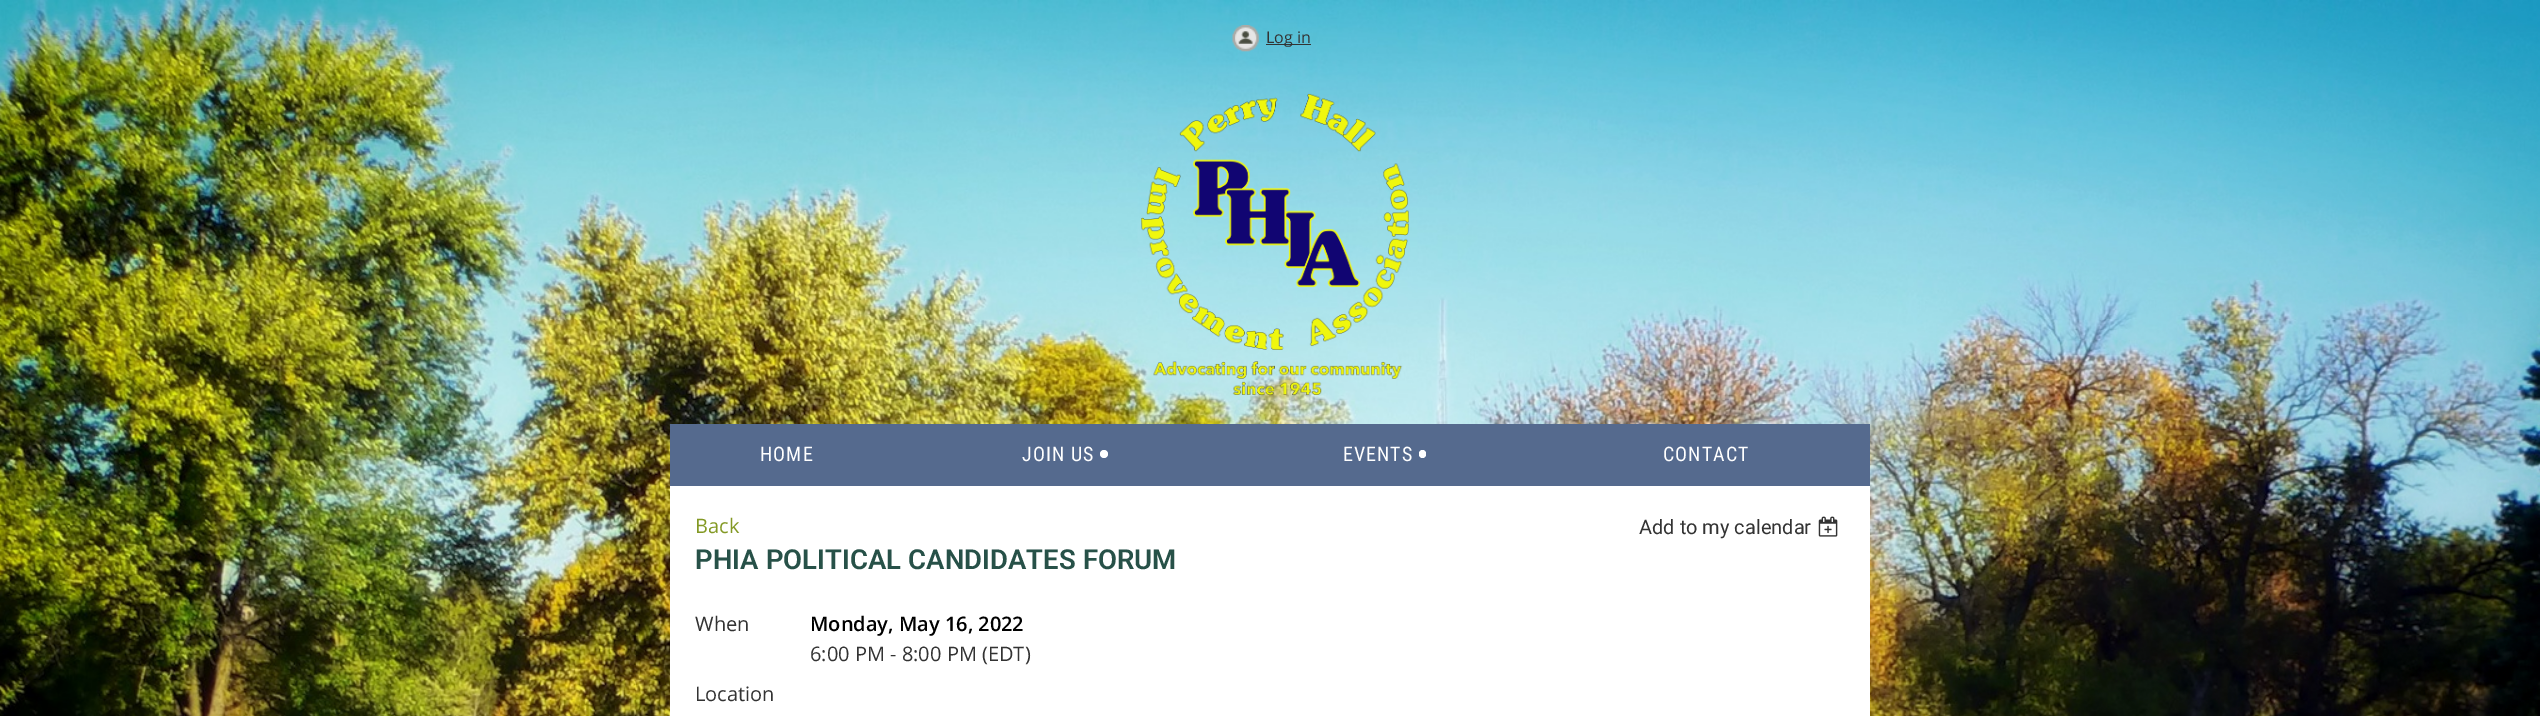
%!PS
<< /PageSize [2540 716] >> setpagedevice
/rgb { 3 { 255 div 3 1 roll } repeat setrgbcolor } def
/font { [ exch dup neg 0 0 3 -1 roll 0 0 ] selectfont } def
/text { moveto show } def
/circle { newpath 0 360 arc closepath } def
/roundrect { 5 dict begin { /r /h /w /y /x } { exch def } forall
  x r add y moveto x w add y 2 copy h add r arct x w add y h add x 1 index r arct
  x y h add x y r arct x y 2 copy exch w add exch r arct closepath end } def
/picture { 5 dict begin { /h /w /y /x /name } { exch def } forall
  gsave x y translate w h scale
  w h 8 [w 0 0 h 0 0] name (r) file false 3 colorimage grestore end } def
0 716 translate 1 -1 scale
4 setmiterlimit
255 255 255 rgb
0 0 2540 716 rectfill
(img_01.rgb) 0 0 2540 716 picture
(img_02.rgb) 1232 25 27 27 picture
51 51 51 rgb
1266 44 45 1 rectfill
(img_03.rgb) 1141 93 268 302 picture
85 106 142 rgb
670 424 1200 62 rectfill
255 255 255 rgb
1104 454 4 circle fill
1419 450 7 8 3.5 roundrect fill
670 486 1200 230 rectfill
(img_04.rgb) 1818 516 20 21 picture
/OpenSans-Regular 16 font
51 51 51 rgb
(Log in) 1266 43 text
/RobotoCondensed-Regular 20 font
255 255 255 rgb
760 461 moveto 1 0 (HOME) ashow
1022 461 moveto 1 0 (JOIN US) ashow
1343 461 moveto 1 0 (EVENTS) ashow
1663 461 moveto 1 0 (CONTACT) ashow
/OpenSans-Regular 20 font
131 153 36 rgb
(Back) 695 533 text
/Roboto-Regular 20 font
51 51 51 rgb
(Add to my calendar) 1639 534 text
/Roboto-SemiBold 27.5 font
39 81 72 rgb
695 569 moveto 0.5 0 32 (PHIA POLITICAL CANDIDATES FORUM) widthshow
/OpenSans-Regular 20 font
51 51 51 rgb
(When) 695 631 text
/OpenSans-SemiBold 20 font
0 0 0 rgb
(Monday, May 16, 2022) 810 631 text
/OpenSans-Regular 20 font
51 51 51 rgb
(6:00 PM - 8:00 PM \(EDT\)) 810 661 text
(Location) 695 701 text
showpage
